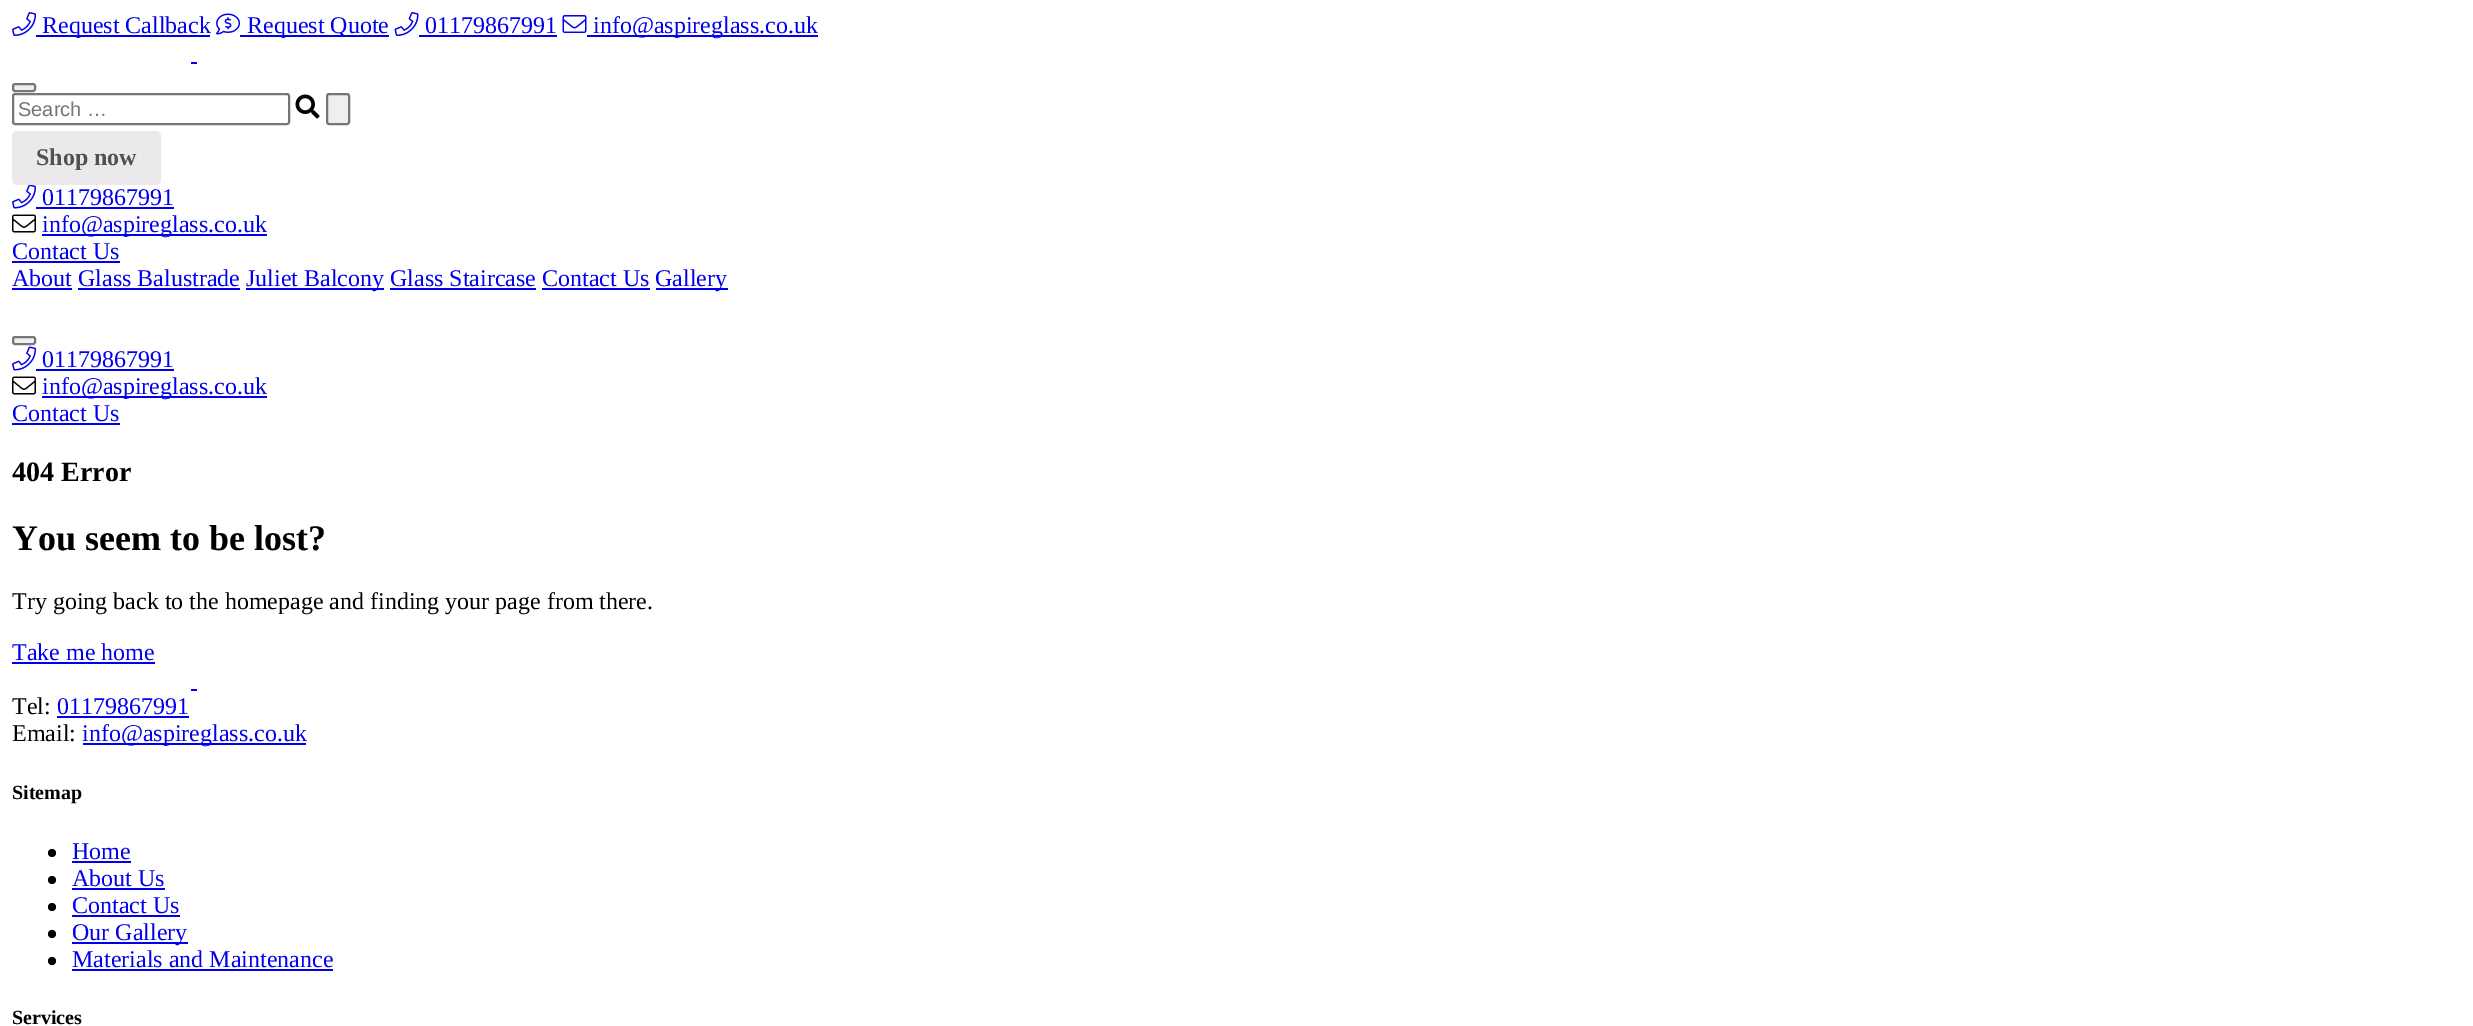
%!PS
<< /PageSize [2473 1026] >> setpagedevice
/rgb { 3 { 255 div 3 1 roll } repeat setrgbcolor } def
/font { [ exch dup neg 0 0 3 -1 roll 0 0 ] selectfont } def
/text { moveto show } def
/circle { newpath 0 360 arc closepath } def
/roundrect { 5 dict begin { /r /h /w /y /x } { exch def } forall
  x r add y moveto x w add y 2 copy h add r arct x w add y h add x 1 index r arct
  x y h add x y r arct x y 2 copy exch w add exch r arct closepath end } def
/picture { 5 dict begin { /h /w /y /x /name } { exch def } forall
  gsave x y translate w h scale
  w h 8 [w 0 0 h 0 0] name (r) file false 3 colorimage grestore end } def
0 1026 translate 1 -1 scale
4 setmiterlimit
255 255 255 rgb
0 0 2473 1026 rectfill
(img_01.rgb) 12 12 25 24 picture
0 0 238 rgb
36 35 174 2 rectfill
(img_02.rgb) 216 13 24 22 picture
240 35 149 2 rectfill
(img_03.rgb) 394 12 25 24 picture
419 35 138 2 rectfill
(img_04.rgb) 562 15 25 18 picture
587 35 231 2 rectfill
191 62 6 2 rectfill
239 239 239 rgb
13 84 22 7 2 roundrect gsave fill grestore
118 118 118 rgb
2 setlinewidth
stroke
13 94 276 30 2 roundrect stroke
(img_05.rgb) 295 94 25 25 picture
239 239 239 rgb
327 94 22 30 2 roundrect gsave fill grestore
118 118 118 rgb
stroke
235 233 235 rgb
12 131 149 54 5 roundrect fill
(img_06.rgb) 12 185 25 24 picture
0 0 238 rgb
36 207 138 2 rectfill
(img_07.rgb) 12 214 24 19 picture
42 234 225 2 rectfill
12 261 108 2 rectfill
12 288 60 2 rectfill
246 288 138 2 rectfill
656 288 72 2 rectfill
78 288 162 2 rectfill
390 288 146 2 rectfill
542 288 108 2 rectfill
239 239 239 rgb
13 337 22 7 2 roundrect gsave fill grestore
118 118 118 rgb
stroke
(img_08.rgb) 12 346 25 25 picture
0 0 238 rgb
36 369 138 2 rectfill
(img_07.rgb) 12 376 24 19 picture
42 396 225 2 rectfill
12 423 108 2 rectfill
12 662 143 2 rectfill
191 689 6 2 rectfill
57 716 132 2 rectfill
83 743 223 2 rectfill
0 0 0 rgb
52 853 4 circle fill
0 0 238 rgb
72 861 59 2 rectfill
0 0 0 rgb
52 880 4 circle fill
0 0 238 rgb
72 888 93 2 rectfill
0 0 0 rgb
52 907 4 circle fill
0 0 238 rgb
72 915 108 2 rectfill
0 0 0 rgb
52 934 4 circle fill
0 0 238 rgb
72 942 116 2 rectfill
0 0 0 rgb
52 961 4 circle fill
0 0 238 rgb
72 969 261 2 rectfill
/LiberationSerif-Regular 24 font
(Request Callback) 42 33 text
(Request Quote) 247 33 text
(01179867991) 425 33 text
(info@aspireglass.co.uk) 593 33 text
/LiberationSans-Regular 20 font
117 117 117 rgb
(Search …) 18 116 text
/LiberationSerif-Bold 24 font
81 81 81 rgb
(Shop now) 36 165 text
/LiberationSerif-Regular 24 font
0 0 238 rgb
(01179867991) 42 205 text
(info@aspireglass.co.uk) 42 232 text
(Contact Us) 12 259 text
(About Glass Balustrade) 12 286 text
(Juliet Balcony Glass Staircase Contact Us) 246 286 text
(Gallery) 655 286 text
(01179867991) 42 367 text
(info@aspireglass.co.uk) 42 394 text
(Contact Us) 12 421 text
/LiberationSerif-Bold 28 font
0 0 0 rgb
(404 Error) 12 481 text
/LiberationSerif-Bold 36 font
(You seem to be lost?) 12 550 text
/LiberationSerif-Regular 24 font
(Try going back to the homepage and finding your page from there.) 12 609 text
0 0 238 rgb
(Take me home) 12 660 text
0 0 0 rgb
(Tel:) 12 714 text
0 0 238 rgb
(01179867991) 57 714 text
0 0 0 rgb
(Email:) 12 741 text
0 0 238 rgb
(info@aspireglass.co.uk) 82 741 text
/LiberationSerif-Bold 20 font
0 0 0 rgb
(Sitemap) 12 799 text
/LiberationSerif-Regular 24 font
0 0 238 rgb
(Home) 72 859 text
(About Us) 72 886 text
(Contact Us) 72 913 text
(Our Gallery) 72 940 text
(Materials and Maintenance) 72 967 text
/LiberationSerif-Bold 20 font
0 0 0 rgb
(Services) 12 1024 text
showpage
